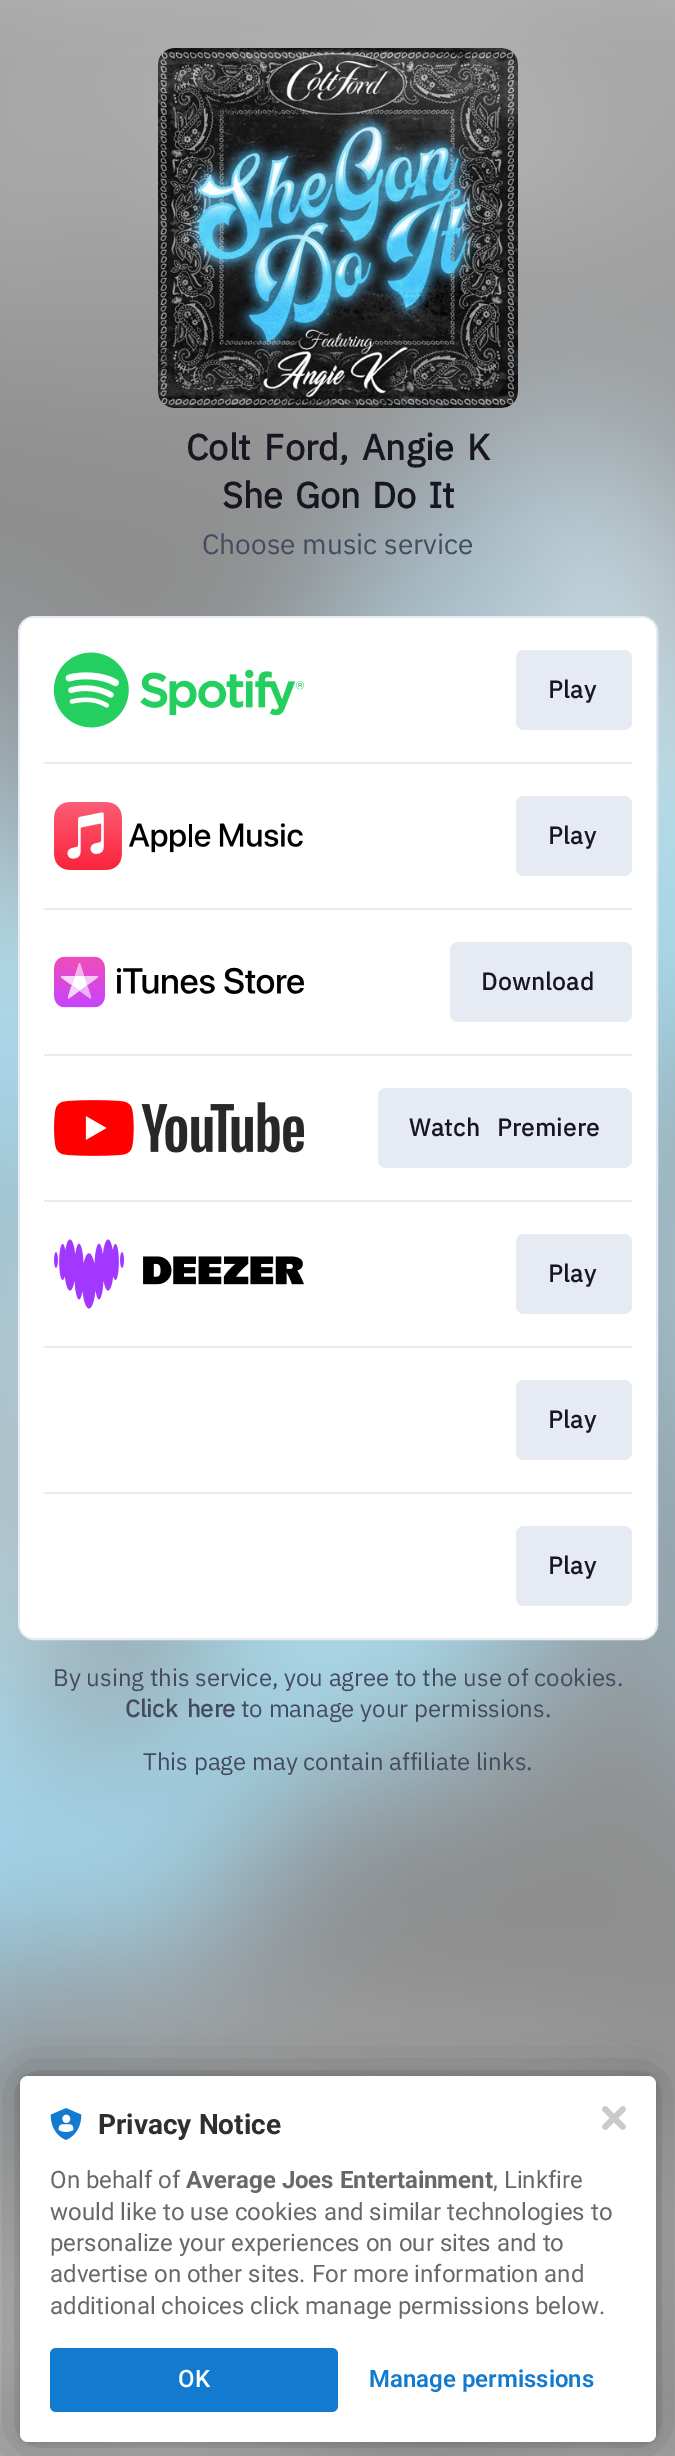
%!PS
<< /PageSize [675 2456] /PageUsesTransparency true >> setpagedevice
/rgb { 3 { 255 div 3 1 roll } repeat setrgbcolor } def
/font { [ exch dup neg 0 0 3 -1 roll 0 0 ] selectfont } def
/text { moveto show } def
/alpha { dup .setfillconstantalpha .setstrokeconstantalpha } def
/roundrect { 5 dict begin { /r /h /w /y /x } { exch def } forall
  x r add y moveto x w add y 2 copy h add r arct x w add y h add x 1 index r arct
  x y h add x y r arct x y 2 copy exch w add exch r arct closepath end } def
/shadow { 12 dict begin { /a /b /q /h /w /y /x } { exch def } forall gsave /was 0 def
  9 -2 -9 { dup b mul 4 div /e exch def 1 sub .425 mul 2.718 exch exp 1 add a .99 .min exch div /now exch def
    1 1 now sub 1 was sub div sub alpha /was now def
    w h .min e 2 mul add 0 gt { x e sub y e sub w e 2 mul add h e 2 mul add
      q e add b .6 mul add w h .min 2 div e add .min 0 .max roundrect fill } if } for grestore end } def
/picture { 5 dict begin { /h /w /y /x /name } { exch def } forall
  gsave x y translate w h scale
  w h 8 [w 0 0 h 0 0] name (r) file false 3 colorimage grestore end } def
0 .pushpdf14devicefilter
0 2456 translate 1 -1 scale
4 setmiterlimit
255 255 255 rgb
0 0 675 2456 rectfill
(img_01.rgb) 0 0 675 2456 picture
(img_02.rgb) 158 48 360 360 picture
230 234 242 rgb
2 setlinewidth
19 617 638 1022 15 roundrect stroke
255 255 255 rgb
20 618 636 1020 14 roundrect fill
(img_03.rgb) 54 652 250 76 picture
230 234 242 rgb
516 650 116 80 8 roundrect fill
44 762 588 2 rectfill
(img_04.rgb) 54 802 249 68 picture
516 796 116 80 8 roundrect fill
44 908 588 2 rectfill
(img_05.rgb) 54 956 250 52 picture
450 942 182 80 8 roundrect fill
44 1054 588 2 rectfill
(img_06.rgb) 54 1100 250 56 picture
378 1088 254 80 8 roundrect fill
44 1200 588 2 rectfill
(img_07.rgb) 54 1239 250 70 picture
516 1234 116 80 8 roundrect fill
44 1346 588 2 rectfill
516 1380 116 80 8 roundrect fill
44 1492 588 2 rectfill
516 1526 116 80 8 roundrect fill
0 0 0 rgb
20 2076 636 366 8 4 0.12 shadow
20 2076 636 366 8 24 0.3 shadow
255 255 255 rgb
20 2076 636 366 8 roundrect fill
(img_08.rgb) 50 2108 32 32 picture
19 123 207 rgb
50 2348 288 64 6 roundrect fill
(img_09.rgb) 602 2106 24 24 picture
/IBMPlexSans-Regular 16 font
68 68 68 rgb
(Colt Ford, An…) 178 92 text
47 47 47 rgb
(She Gon Do It) 178 116 text
/IBMPlexSans-Bold 36 font
24 23 33 rgb
186 460 moveto 5 0 32 (Colt Ford, Angie K) widthshow
222 508 moveto 3 0 32 (She Gon Do It) widthshow
/IBMPlexSans-Regular 28 font
69 75 95 rgb
(Choose music service) 202 554 text
/IBMPlexSans-Bold 24 font
24 23 33 rgb
548 698 moveto 0.6 0 (Play) ashow
548 844 moveto 0.6 0 (Play) ashow
481 990 moveto 0.6 0 (Download) ashow
409 1136 moveto 10 0 32 0.6 0 (Watch Premiere) awidthshow
548 1282 moveto 0.6 0 (Play) ashow
548 1428 moveto 0.6 0 (Play) ashow
548 1574 moveto 0.6 0 (Play) ashow
/IBMPlexSans-Regular 24 font
69 75 95 rgb
(By using this service, you agree to the use of cookies.) 53 1686 text
/IBMPlexSans-Bold 24 font
125 1717 moveto 4 0 32 (Click here) widthshow
/IBMPlexSans-Regular 24 font
(to manage your permissions.) 241 1717 text
(This page may contain affiliate links.) 143 1770 text
/Roboto-Bold 28 font
47 47 47 rgb
(Privacy Notice) 98 2134 text
/Roboto-Regular 24 font
104 104 104 rgb
(On behalf of) 50 2188 text
/Roboto-Bold 24 font
(Average Joes Entertainment) 186 2188 text
/Roboto-Regular 24 font
(, Linkfire) 493 2188 text
(would like to use cookies and similar technologies to) 50 2220 text
(personalize your experiences on our sites and to) 50 2251 text
(advertise on other sites. For more information and) 50 2282 text
(additional choices click manage permissions below.) 50 2314 text
/Roboto-Medium 24 font
255 255 255 rgb
(OK) 178 2387 text
/Roboto-SemiBold 24 font
19 123 207 rgb
(Manage permissions) 369 2387 text
.poppdf14devicefilter showpage
